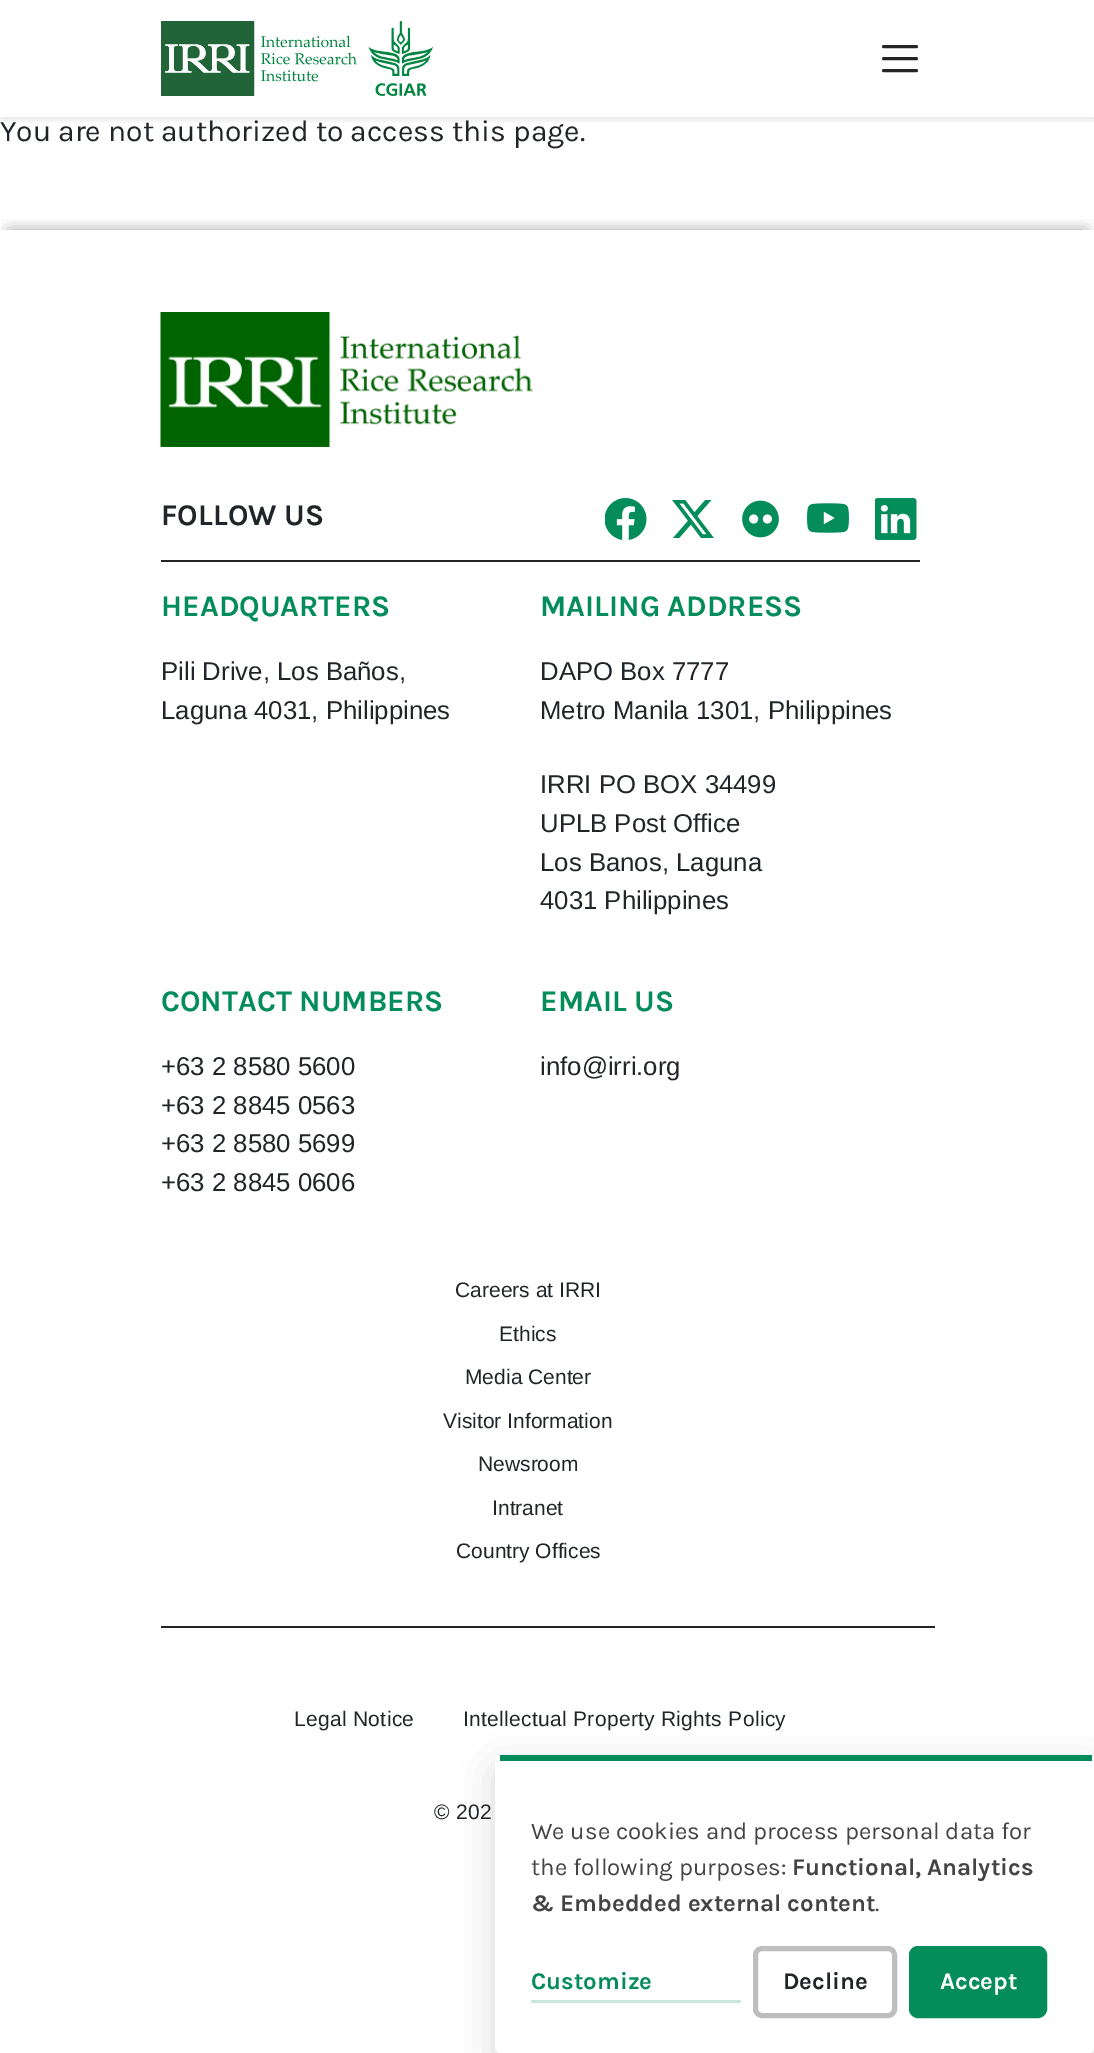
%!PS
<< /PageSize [1094 2053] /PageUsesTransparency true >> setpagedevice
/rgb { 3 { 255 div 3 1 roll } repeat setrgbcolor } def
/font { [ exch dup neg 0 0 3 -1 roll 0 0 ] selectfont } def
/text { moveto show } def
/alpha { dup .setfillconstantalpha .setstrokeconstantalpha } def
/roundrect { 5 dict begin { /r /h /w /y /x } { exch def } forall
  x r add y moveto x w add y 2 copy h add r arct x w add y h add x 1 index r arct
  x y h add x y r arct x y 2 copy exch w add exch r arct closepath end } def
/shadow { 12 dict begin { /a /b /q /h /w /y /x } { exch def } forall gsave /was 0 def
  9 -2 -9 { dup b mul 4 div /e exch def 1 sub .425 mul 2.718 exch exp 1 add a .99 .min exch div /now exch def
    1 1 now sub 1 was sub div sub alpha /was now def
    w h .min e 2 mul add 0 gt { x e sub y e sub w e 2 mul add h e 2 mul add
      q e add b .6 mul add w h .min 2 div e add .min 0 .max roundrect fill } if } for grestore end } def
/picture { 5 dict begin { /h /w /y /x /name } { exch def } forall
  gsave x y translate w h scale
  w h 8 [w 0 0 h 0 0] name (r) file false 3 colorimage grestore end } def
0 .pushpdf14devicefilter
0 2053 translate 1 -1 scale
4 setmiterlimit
255 255 255 rgb
0 0 1094 2053 rectfill
gsave
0 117 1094 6 rectclip
0 0 0 rgb
0 3 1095 117 0 3 0.1 shadow
grestore
(img_01.rgb) 161 21 94 75 picture
(img_02.rgb) 261 21 172 75 picture
36 36 36 rgb
3 setlinewidth
1 setlinecap
883.5 46.5 moveto 33 0 rlineto 883.5 58.5 moveto 33 0 rlineto 883.5 70.5 moveto 33 0 rlineto stroke
gsave
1 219 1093 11 rectclip
0 0 0 rgb
9 231 1077 1638 0 7.5 0.4 shadow
grestore
(img_03.rgb) 160 312 373 135 picture
161 560 759 2 rectfill
(img_04.rgb) 605 498 42 42 picture
(img_05.rgb) 672 500 42 38 picture
(img_06.rgb) 742 500 37 38 picture
(img_07.rgb) 807 503 42 30 picture
(img_08.rgb) 875 498 42 42 picture
161 1626 774 2 rectfill
0 0 0 rgb
495 1767 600 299 8 18 0.15 shadow
255 255 255 rgb
495 1755 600 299 8 roundrect fill
4 141 91 rgb
500 1755 592 6 rectfill
205 229 220 rgb
531 2000 210 3 rectfill
190 190 190 rgb
5 setlinewidth
0 setlinecap
755.5 1948.5 139 67 6.5 roundrect stroke
4 141 91 rgb
911.5 1948.5 133 67 6.5 roundrect gsave fill grestore
stroke
/Karla-Regular 30 font
33 37 41 rgb
(You are not authorized to access this page.) 0 141 text
/Karla-Bold 30 font
(FOLLOW US) 161 525 text
4 141 91 rgb
(HEADQUARTERS) 161 616 text
/LiberationSans-Regular 25.75 font
33 37 41 rgb
(Pili Drive, Los Baños,) 161 680 text
(Laguna 4031, Philippines) 161 719 text
/Karla-Bold 30 font
4 141 91 rgb
(MAILING ADDRESS) 540 616 text
/LiberationSans-Regular 25.75 font
33 37 41 rgb
(DAPO Box 7777) 540 680 text
(Metro Manila 1301, Philippines) 540 719 text
(IRRI PO BOX 34499) 540 793 text
(UPLB Post Office) 540 832 text
(Los Banos, Laguna) 540 871 text
(4031 Philippines) 540 909 text
/Karla-Bold 30 font
4 141 91 rgb
(CONTACT NUMBERS) 161 1011 text
/LiberationSans-Regular 25.75 font
33 37 41 rgb
(+63 2 8580 5600) 161 1075 text
(+63 2 8845 0563) 161 1114 text
(+63 2 8580 5699) 161 1152 text
(+63 2 8845 0606) 161 1191 text
/Karla-Bold 30 font
4 141 91 rgb
(EMAIL US) 540 1011 text
/LiberationSans-Regular 25.75 font
33 37 41 rgb
(info@irri.org) 540 1075 text
/LiberationSans-Regular 21 font
(Careers at IRRI) 455 1297 text
(Ethics) 499 1341 text
(Media Center) 465 1384 text
(Visitor Information) 443 1428 text
(Newsroom) 478 1471 text
(Intranet) 492 1515 text
(Country Offices) 456 1558 text
294 1726 moveto 0.3 0 (Legal Notice) ashow
463 1726 moveto 0.3 0 (Intellectual Property Rights Policy) ashow
434 1819 moveto 0.3 0 (© 202) ashow
/Karla-Regular 24 font
68 68 68 rgb
(We use cookies and process personal data for) 531 1839 text
(the following purposes:) 531 1875 text
/Karla-Bold 24 font
(Functional, Analytics) 792 1875 text
(& Embedded external content) 531 1911 text
/Karla-Regular 24 font
(.) 875 1911 text
/Karla-Bold 24 font
4 141 91 rgb
(Customize) 531 1989 text
33 37 41 rgb
(Decline) 783 1989 text
255 255 255 rgb
(Accept) 940 1989 text
.poppdf14devicefilter showpage
